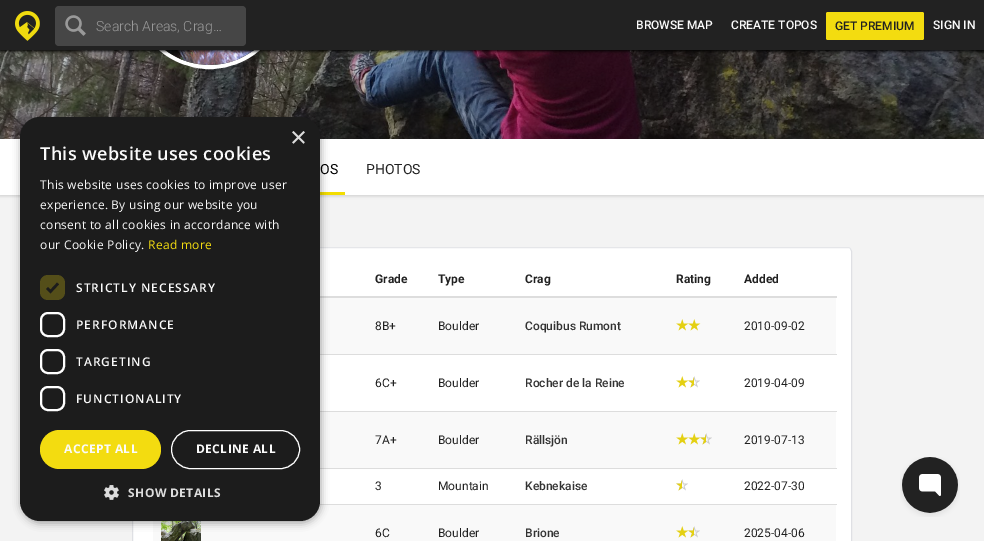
%!PS
<< /PageSize [984 541] /PageUsesTransparency true >> setpagedevice
/rgb { 3 { 255 div 3 1 roll } repeat setrgbcolor } def
/font { [ exch dup neg 0 0 3 -1 roll 0 0 ] selectfont } def
/text { moveto show } def
/alpha { dup .setfillconstantalpha .setstrokeconstantalpha } def
/roundrect { 5 dict begin { /r /h /w /y /x } { exch def } forall
  x r add y moveto x w add y 2 copy h add r arct x w add y h add x 1 index r arct
  x y h add x y r arct x y 2 copy exch w add exch r arct closepath end } def
/shadow { 12 dict begin { /a /b /q /h /w /y /x } { exch def } forall gsave /was 0 def
  9 -2 -9 { dup b mul 4 div /e exch def 1 sub .425 mul 2.718 exch exp 1 add a .99 .min exch div /now exch def
    1 1 now sub 1 was sub div sub alpha /was now def
    w h .min e 2 mul add 0 gt { x e sub y e sub w e 2 mul add h e 2 mul add
      q e add b .6 mul add w h .min 2 div e add .min 0 .max roundrect fill } if } for grestore end } def
/picture { 5 dict begin { /h /w /y /x /name } { exch def } forall
  gsave x y translate w h scale
  w h 8 [w 0 0 h 0 0] name (r) file false 3 colorimage grestore end } def
0 .pushpdf14devicefilter
0 541 translate 1 -1 scale
4 setmiterlimit
243 243 243 rgb
0 0 984 541 rectfill
(img_04.rgb) 0 50 984 89 picture
255 255 255 rgb
4 setlinewidth
134 -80 151 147 75.5 roundrect stroke
(img_03.rgb) 165 50 89 15 picture
1 1 1 rgb
0 1 984 50 0 1.5 1 shadow
34 34 34 rgb
0 0 984 50 rectfill
(img_01.rgb) 15 11 25 30 picture
70 70 70 rgb
55 6 191 40 4 roundrect fill
(img_02.rgb) 65 15 21 21 picture
243 220 16 rgb
826 12 98 28 2 roundrect fill
0 0 0 rgb
0 140 984 56 0 1.5 0.15 shadow
255 255 255 rgb
0 139 984 56 rectfill
243 221 0 rgb
320 192 25 3 rectfill
255 255 255 rgb
132 247 720 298 4 roundrect fill
229 230 233 rgb
1 setlinewidth
133.5 248.5 moveto 0.5 -0.5 1.5 -1 2.5 -1 rcurveto 712 0 rlineto 1 0 2 0.5 2.5 1 rcurveto stroke
223 224 228 rgb
850.5 248.5 moveto 1 2.5 rlineto 0 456 rlineto -1 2.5 rlineto stroke
133.5 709.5 moveto -1 -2.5 rlineto 0 -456 rlineto 1 -2.5 rlineto stroke
221 221 221 rgb
320 296 517 2 rectfill
249 249 249 rgb
320 298 516 56 rectfill
(img_05.rgb) 676 319 13 12 picture
(img_06.rgb) 688 319 13 12 picture
(img_07.rgb) 676 376 13 12 picture
(img_08.rgb) 688 376 12 12 picture
(img_09.rgb) 688 377 6 11 picture
221 221 221 rgb
320 354 517 1 rectfill
249 249 249 rgb
320 412 516 56 rectfill
(img_05.rgb) 676 433 13 12 picture
(img_06.rgb) 688 433 13 12 picture
(img_10.rgb) 700 433 12 12 picture
(img_11.rgb) 700 434 6 11 picture
221 221 221 rgb
320 411 517 1 rectfill
(img_12.rgb) 676 479 12 12 picture
(img_13.rgb) 676 480 6 11 picture
320 468 517 1 rectfill
249 249 249 rgb
153 505 683 36 rectfill
(img_14.rgb) 161 521 40 20 picture
(img_05.rgb) 676 526 13 12 picture
(img_10.rgb) 688 526 12 12 picture
(img_11.rgb) 688 527 6 11 picture
221 221 221 rgb
319 504 518 1 rectfill
0 0 0 rgb
21 119 300 404 20 4 0.35 shadow
28 28 28 rgb
20 117 300 404 20 roundrect fill
84 78 25 rgb
40 275 25 25 8 roundrect fill
28 28 28 rgb
2.6 setlinewidth
47 288 moveto 3.5 3.5 rlineto 7.5 -8 rlineto stroke
255 255 255 rgb
2 setlinewidth
41 313 23 23 7 roundrect stroke
41 350 23 23 7 roundrect stroke
41 387 23 23 7 roundrect stroke
243 220 16 rgb
40 430 121 39 19.5 roundrect fill
255 255 255 rgb
1 setlinewidth
171.5 430.5 128 38 19 roundrect stroke
(img_15.rgb) 104 485 15 15 picture
(img_16.rgb) 900 457 60 60 picture
/Roboto-Light 14 font
153 153 153 rgb
(Search Areas, Crag…) 96 31 text
/Roboto-Medium 12 font
250 250 250 rgb
(BROWSE MAP) 636 29 text
(CREATE TOPOS) 731 29 text
33 33 33 rgb
(GET PREMIUM) 835 30 text
250 250 250 rgb
(SIGN IN) 933 29 text
/Roboto-Regular 14 font
0 0 0 rgb
(OS) 320 174 text
33 33 33 rgb
(PHOTOS) 366 174 text
/Roboto-Bold 12 font
(Grade) 375 283 text
(Type) 438 283 text
(Crag) 525 283 text
(Rating) 676 283 text
(Added) 744 283 text
/Roboto-Regular 12 font
(8B+) 375 330 text
(Boulder) 438 330 text
/Roboto-Medium 12 font
51 51 51 rgb
(Coquibus Rumont) 525 330 text
/Roboto-Regular 12 font
33 33 33 rgb
(2010-09-02) 744 330 text
(6C+) 375 387 text
(Boulder) 438 387 text
/Roboto-Medium 12 font
51 51 51 rgb
(Rocher de la Reine) 525 387 text
/Roboto-Regular 12 font
33 33 33 rgb
(2019-04-09) 744 387 text
(7A+) 375 444 text
(Boulder) 438 444 text
/Roboto-Medium 12 font
51 51 51 rgb
(Rällsjön) 525 444 text
/Roboto-Regular 12 font
33 33 33 rgb
(2019-07-13) 744 444 text
(3) 375 490 text
(Mountain) 438 490 text
/Roboto-Medium 12 font
51 51 51 rgb
(Kebnekaise) 525 490 text
/Roboto-Regular 12 font
33 33 33 rgb
(2022-07-30) 744 490 text
(6C) 375 537 text
(Boulder) 438 537 text
/Roboto-Medium 12 font
51 51 51 rgb
(Brione) 525 537 text
/Roboto-Regular 12 font
33 33 33 rgb
(2025-04-06) 744 537 text
/LiberationSans-Regular 29 font
221 221 221 rgb
(×) 290 147 text
/OpenSans-SemiBold 18 font
250 250 250 rgb
40 160 moveto 0.4 0 (This website uses cookies) ashow
/OpenSans-Regular 12 font
40 189 moveto 0.3 0 (This website uses cookies to improve user) ashow
40 209 moveto 0.3 0 (experience. By using our website you) ashow
40 229 moveto 0.3 0 (consent to all cookies in accordance with) ashow
40 249 moveto 0.3 0 (our Cookie Policy.) ashow
243 220 16 rgb
148 249 moveto 0.3 0 (Read more) ashow
/OpenSans-SemiBold 12 font
250 250 250 rgb
76 292 moveto 1 0 (STRICTLY NECESSARY) ashow
76 329 moveto 1 0 (PERFORMANCE) ashow
76 366 moveto 1 0 (TARGETING) ashow
76 403 moveto 1 0 (FUNCTIONALITY) ashow
/OpenSans-Bold 12 font
64 453 moveto 0.4 0 (ACCEPT ALL) ashow
196 453 moveto 0.4 0 (DECLINE ALL) ashow
221 221 221 rgb
128 497 moveto 0.4 0 (SHOW DETAILS) ashow
.poppdf14devicefilter showpage
